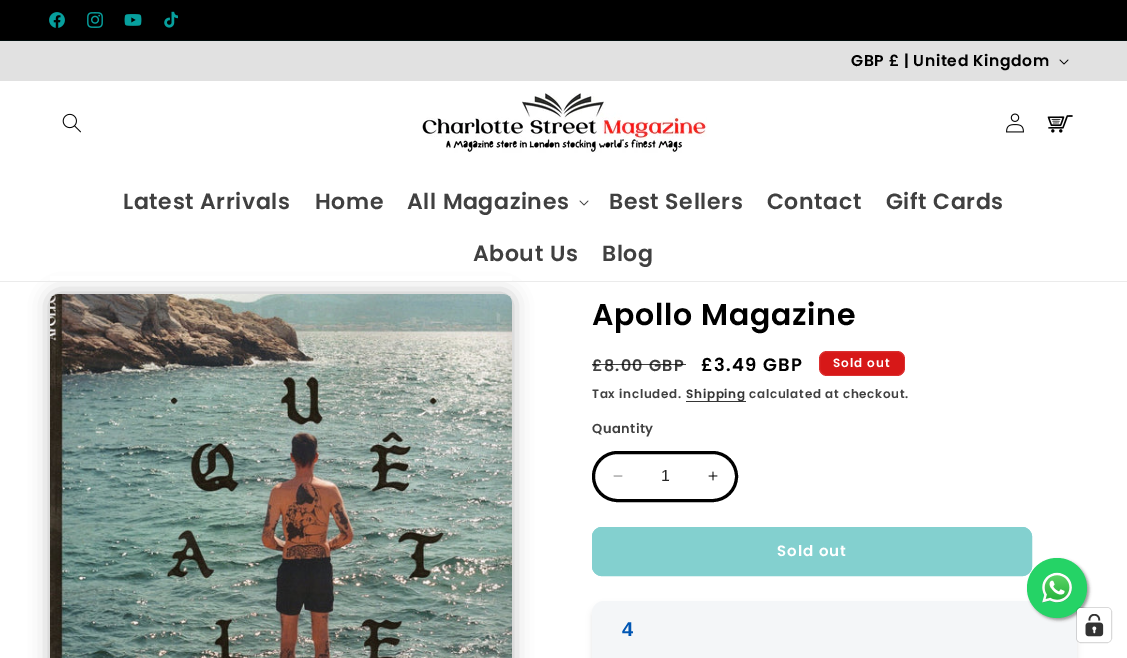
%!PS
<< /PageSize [1127 658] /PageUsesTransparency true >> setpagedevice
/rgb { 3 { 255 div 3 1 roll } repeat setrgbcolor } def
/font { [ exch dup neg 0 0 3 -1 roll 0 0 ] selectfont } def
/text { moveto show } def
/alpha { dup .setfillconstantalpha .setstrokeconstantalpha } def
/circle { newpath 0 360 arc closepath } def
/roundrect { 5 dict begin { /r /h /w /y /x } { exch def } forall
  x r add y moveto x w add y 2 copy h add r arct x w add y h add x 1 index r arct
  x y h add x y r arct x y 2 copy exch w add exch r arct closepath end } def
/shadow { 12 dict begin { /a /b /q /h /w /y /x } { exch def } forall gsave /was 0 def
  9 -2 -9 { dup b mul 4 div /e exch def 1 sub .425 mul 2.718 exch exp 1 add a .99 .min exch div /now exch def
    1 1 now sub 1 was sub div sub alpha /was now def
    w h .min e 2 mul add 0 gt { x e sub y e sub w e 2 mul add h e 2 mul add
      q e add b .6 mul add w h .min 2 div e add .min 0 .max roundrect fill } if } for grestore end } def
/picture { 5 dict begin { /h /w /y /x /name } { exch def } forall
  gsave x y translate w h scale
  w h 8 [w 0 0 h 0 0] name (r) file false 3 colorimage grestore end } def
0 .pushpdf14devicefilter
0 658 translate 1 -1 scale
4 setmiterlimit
255 255 255 rgb
0 0 1127 658 rectfill
0 0 0 rgb
0 0 1127 40 rectfill
1 13 13 rgb
0 40 1127 1 rectfill
(img_01.rgb) 49 12 16 16 picture
(img_02.rgb) 87 12 16 16 picture
(img_03.rgb) 124 14 18 12 picture
(img_04.rgb) 164 11 14 17 picture
225 225 225 rgb
0 41 1127 40 rectfill
(img_05.rgb) 1059 59 10 6 picture
18 18 18 rgb
50 294 462 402 8 10 0.3 shadow
255 255 255 rgb
50 276 462 5 rectfill
235 235 235 rgb
0 281 1127 1 rectfill
(img_06.rgb) 62 113 19 20 picture
(img_07.rgb) 422 93 285 60 picture
(img_08.rgb) 1006 113 18 20 picture
(img_09.rgb) 1047 115 26 18 picture
(img_10.rgb) 579 200 10 6 picture
(img_11.rgb) 50 294 462 364 picture
215 24 24 rgb
819 351 86 25 8 roundrect fill
0.1 alpha
255 255 255 rgb
819.5 351.5 85 24 7.5 roundrect stroke
1 alpha
54 54 54 rgb
686 401 60 1 rectfill
(img_12.rgb) 613 475 10 2 picture
(img_13.rgb) 708 471 10 10 picture
0 0 0 rgb
3 setlinewidth
593.5 452.5 143 48 24 roundrect stroke
131 208 207 rgb
592 527 440 49 10 roundrect fill
2 setlinewidth
593 528 438 47 9 roundrect stroke
0 0 0 rgb
592 605 485 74 12 3 0.1 shadow
244 246 248 rgb
592 601 485 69 12 roundrect fill
153 153 153 rgb
1029 560 60 60 30 1.5 1 shadow
37 211 102 rgb
1057 588 30 circle fill
(img_14.rgb) 1042 572 30 31 picture
0.15 alpha
0 0 0 rgb
1 setlinewidth
1076.5 607.5 35 35 4.5 roundrect stroke
1 alpha
255 255 255 rgb
1077 608 34 34 4 roundrect fill
(img_15.rgb) 1085 614 19 23 picture
/Poppins-SemiBold 15.6 font
0 0 0 rgb
851 66 moveto 0.6 0 (GBP £ | United Kingdom) ashow
/Poppins-SemiBold 22 font
64 64 64 rgb
123 209 moveto 0.6 0 (Latest Arrivals) ashow
315 209 moveto 0.6 0 (Home) ashow
407 209 moveto 0.6 0 (All Magazines) ashow
609 209 moveto 0.6 0 (Best Sellers) ashow
767 209 moveto 0.6 0 (Contact) ashow
886 209 moveto 0.6 0 (Gift Cards) ashow
473 261 moveto 0.6 0 (About Us) ashow
602 261 moveto 0.6 0 (Blog) ashow
/Poppins-SemiBold 30 font
0 0 0 rgb
592 325 moveto 0.75 0 (Apollo Magazine) ashow
/Poppins-SemiBold 16 font
64 64 64 rgb
592 371 moveto 1.25 0 (£8.00 GBP) ashow
0.75 alpha
0 0 0 rgb
592 364 94 1 rectfill
/Poppins-SemiBold 18 font
1 alpha
701 371 moveto 1.25 0 (£3.49 GBP) ashow
/Poppins-SemiBold 12 font
255 255 255 rgb
833 367 moveto 1 0 (Sold out) ashow
64 64 64 rgb
592 398 moveto 0.7 0 (Tax included.) ashow
53 53 53 rgb
686 398 moveto 0.7 0 (Shipping) ashow
64 64 64 rgb
749 398 moveto 0.7 0 (calculated at checkout.) ashow
/Poppins-SemiBold 13 font
592 433 moveto 0.5 0 (Quantity) ashow
/LiberationSans-Regular 16 font
38 38 38 rgb
(1) 661 481 text
/Poppins-SemiBold 15 font
255 255 255 rgb
777 556 moveto 1 0 (Sold out) ashow
/LiberationSans-Bold 20 font
0 86 179 rgb
622 636 moveto 0.6 0 (4) ashow
.poppdf14devicefilter showpage
